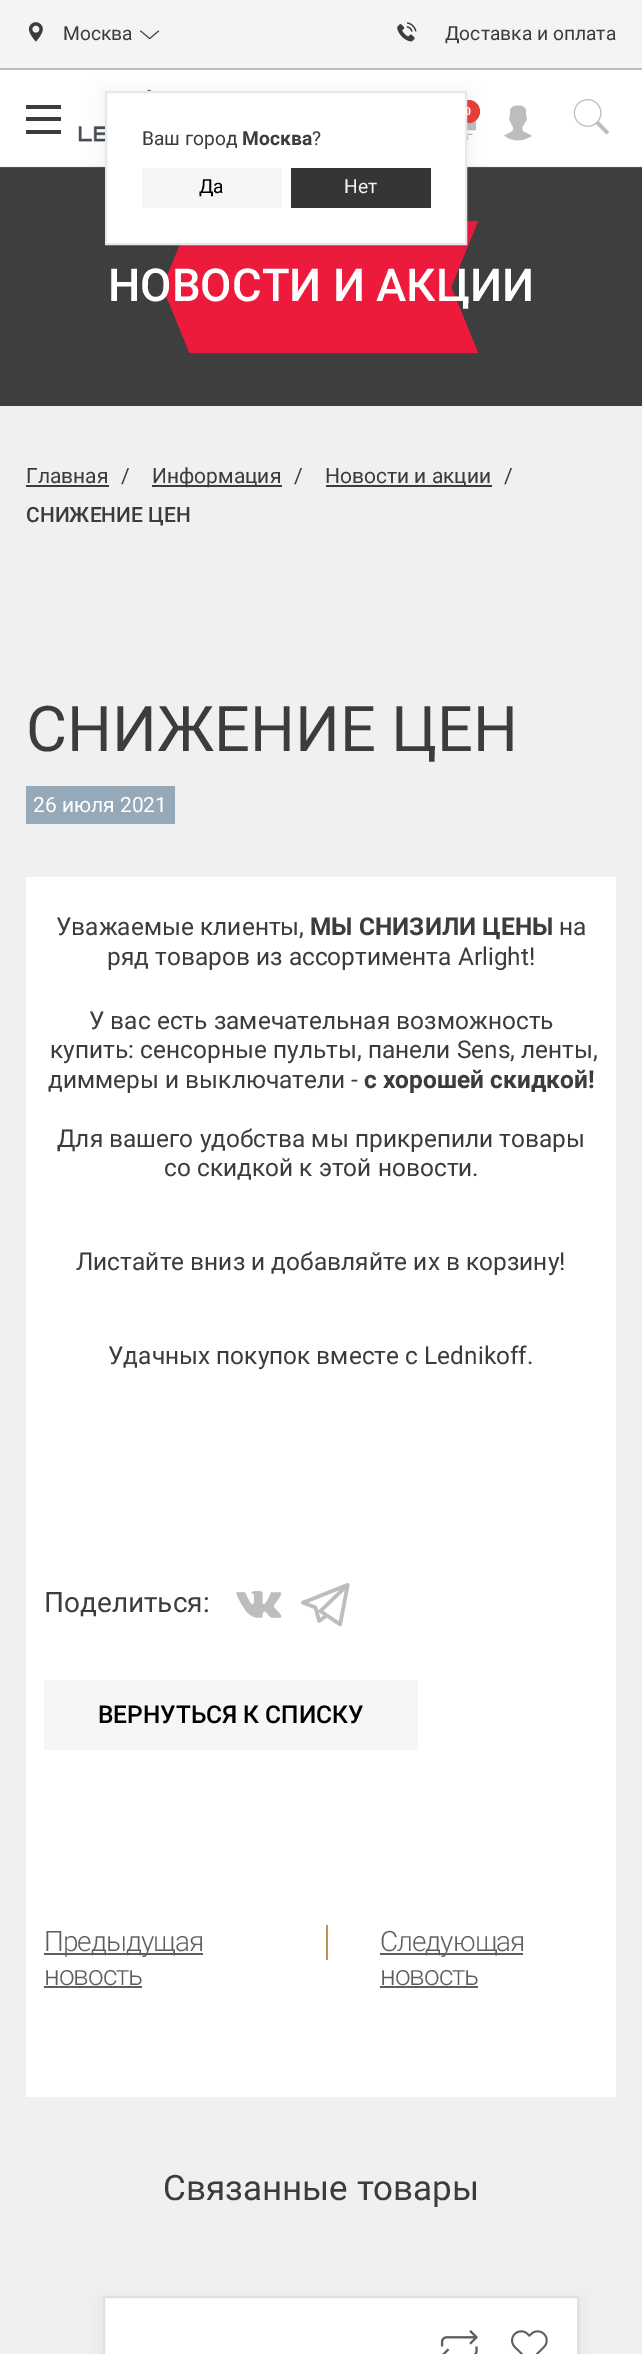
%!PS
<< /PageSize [642 2354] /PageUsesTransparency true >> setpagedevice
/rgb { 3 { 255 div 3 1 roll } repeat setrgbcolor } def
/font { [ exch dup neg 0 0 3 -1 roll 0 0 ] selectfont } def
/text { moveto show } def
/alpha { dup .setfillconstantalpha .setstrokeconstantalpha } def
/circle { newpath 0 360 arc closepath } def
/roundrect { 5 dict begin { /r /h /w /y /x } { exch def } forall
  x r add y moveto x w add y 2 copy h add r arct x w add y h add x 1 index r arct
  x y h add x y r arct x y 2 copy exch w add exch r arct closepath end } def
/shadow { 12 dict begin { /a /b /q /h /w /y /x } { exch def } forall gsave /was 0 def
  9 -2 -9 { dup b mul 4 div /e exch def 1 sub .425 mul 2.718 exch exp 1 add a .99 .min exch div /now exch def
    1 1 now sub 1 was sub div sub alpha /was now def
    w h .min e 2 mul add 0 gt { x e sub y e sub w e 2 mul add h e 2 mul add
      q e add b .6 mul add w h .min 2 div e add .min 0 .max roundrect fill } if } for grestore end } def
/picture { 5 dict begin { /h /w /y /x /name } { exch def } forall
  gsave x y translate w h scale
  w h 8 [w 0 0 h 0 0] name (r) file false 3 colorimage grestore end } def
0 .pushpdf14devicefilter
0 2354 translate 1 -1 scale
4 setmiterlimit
255 255 255 rgb
0 0 642 2354 rectfill
244 244 244 rgb
0 0 642 68 rectfill
189 189 189 rgb
0 68 642 2 rectfill
(img_01.rgb) 28 22 15 20 picture
(img_02.rgb) 140 30 20 10 picture
(img_04.rgb) 78 89 74 53 picture
(img_05.rgb) 467 120 9 21 picture
232 62 56 rgb
468.5 111.5 11.5 circle fill
240 240 240 rgb
0 166 642 2188 rectfill
(img_08.rgb) 0 167 642 239 picture
66 69 71 rgb
105 93 362 154 0 9 0.1 shadow
255 255 255 rgb
106 92 moveto 360 0 rlineto 0 152 rlineto -360 0 rlineto closepath gsave fill grestore
228 233 237 rgb
2 setlinewidth
stroke
246 246 246 rgb
142 168 140 40 rectfill
54 53 52 rgb
291 168 140 40 rectfill
(img_03.rgb) 397 22 20 20 picture
60 60 60 rgb
26 105 35 4 rectfill
26 117 35 4 rectfill
26 130 35 4 rectfill
(img_06.rgb) 504 105 28 36 picture
(img_07.rgb) 573 99 37 36 picture
26 485 83 2 rectfill
152 485 130 2 rectfill
326 485 166 2 rectfill
150 169 184 rgb
26 786 149 38 rectfill
255 255 255 rgb
26 877 590 1220 rectfill
(img_09.rgb) 236 1591 46 27 picture
(img_10.rgb) 301 1583 49 44 picture
246 246 246 rgb
44 1680 374 70 rectfill
94 94 94 rgb
44 1953 159 2 rectfill
191 148 80 rgb
326 1925 2 35 rectfill
94 94 94 rgb
44 1986 98 2 rectfill
380 1953 143 2 rectfill
380 1986 98 2 rectfill
105 105 105 rgb
103 2300 476 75 0 7 0.1 shadow
255 255 255 rgb
104 2297 moveto 474 0 rlineto 0 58 rlineto -474 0 rlineto closepath gsave fill grestore
224 224 224 rgb
stroke
(img_11.rgb) 440 2330 38 24 picture
(img_12.rgb) 511 2330 37 24 picture
/Roboto-Regular 19.25 font
60 60 60 rgb
(Москва) 63 40 text
(Ваш город) 142 145 text
/Roboto-Bold 19.25 font
(Москва) 242 145 text
/Roboto-Regular 19.25 font
(?) 312 145 text
0 0 0 rgb
(Да) 199 193 text
242 242 242 rgb
(Нет) 344 193 text
60 60 60 rgb
(Доставка и оплата) 445 40 text
/LiberationSerif-Bold 12 font
255 255 255 rgb
(0) 465 115 text
/Roboto-Medium 45.5 font
(НОВОСТИ И АКЦИИ) 108 301 text
/Roboto-Regular 21 font
60 60 60 rgb
(Главная) 26 483 text
(/) 121 483 text
(Информация) 152 483 text
(/) 294 483 text
(Новости и акции) 325 483 text
(/) 504 483 text
/Roboto-Medium 21 font
(СНИЖЕНИЕ ЦЕН) 26 522 text
/Roboto-Regular 63 font
(СНИЖЕНИЕ ЦЕН) 26 751 text
/Roboto-Regular 21 font
255 255 255 rgb
(26 июля 2021) 33 812 text
/Roboto-Regular 24.5 font
60 60 60 rgb
(Уважаемые клиенты,) 56 935 text
/Roboto-Bold 24.5 font
(МЫ СНИЗИЛИ ЦЕНЫ) 310 935 text
/Roboto-Regular 24.5 font
(на) 559 935 text
(ряд товаров из ассортимента Arlight!) 107 965 text
(У вас есть замечательная возможность) 89 1029 text
(купить: сенсорные пульты, панели Sens, ленты,) 50 1058 text
(диммеры и выключатели -) 48 1088 text
/Roboto-Bold 24.5 font
(с хорошей скидкой!) 364 1088 text
/Roboto-Regular 24.5 font
(Для вашего удобства мы прикрепили товары) 57 1147 text
(со скидкой к этой новости.) 164 1176 text
(Листайте вниз и добавляйте их в корзину!) 76 1270 text
(Удачных покупок вместе с Lednikoff.) 108 1364 text
/Roboto-Regular 28 font
(Поделиться:) 44 1612 text
/Roboto-Medium 24.5 font
0 0 0 rgb
(ВЕРНУТЬСЯ К СПИСКУ) 98 1723 text
/Roboto-Light 28 font
94 94 94 rgb
44 1951 moveto -1 0 (Предыдущая) ashow
44 1985 moveto -1 0 (новость) ashow
380 1951 moveto -1 0 (Следующая) ashow
380 1985 moveto -1 0 (новость) ashow
/Roboto-Regular 35 font
60 60 60 rgb
(Связанные товары) 163 2200 text
.poppdf14devicefilter showpage
